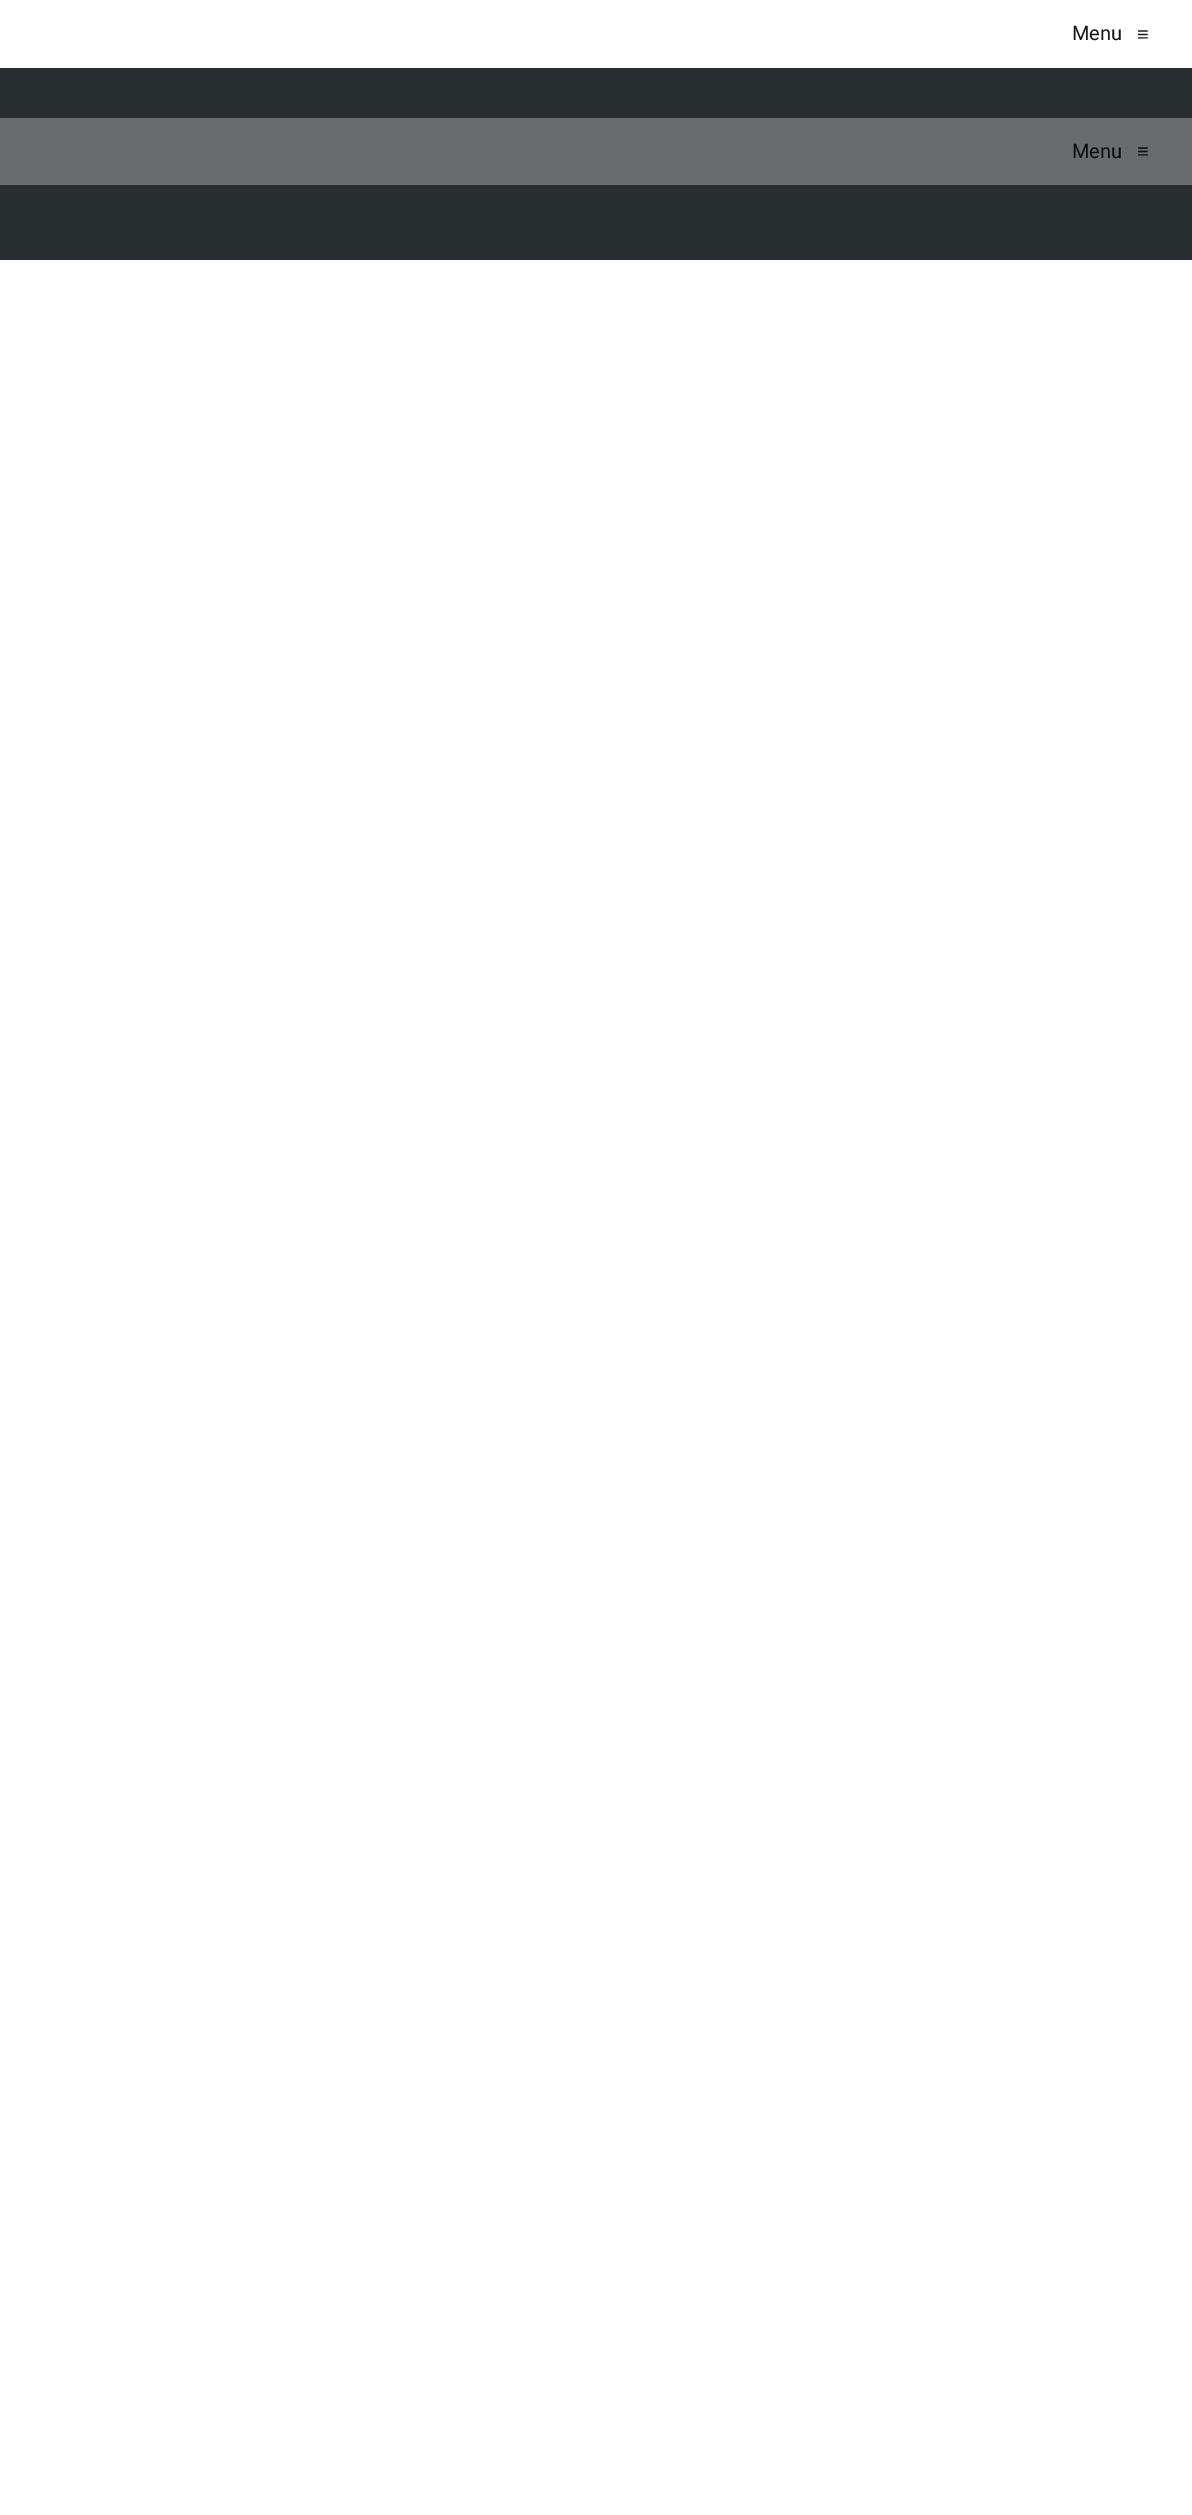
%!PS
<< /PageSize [1192 2515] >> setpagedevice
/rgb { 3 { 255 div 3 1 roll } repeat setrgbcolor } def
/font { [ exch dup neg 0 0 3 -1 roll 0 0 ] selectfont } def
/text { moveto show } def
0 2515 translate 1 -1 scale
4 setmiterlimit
255 255 255 rgb
0 0 1192 2515 rectfill
40 45 48 rgb
0 68 1192 192 rectfill
105 108 110 rgb
0 118 1192 67 rectfill
/Roboto-Regular 20 font
23 23 23 rgb
(Menu) 1072 40 text
/LiberationSans-Regular 20 font
(≡) 1137 41 text
/Roboto-Regular 20 font
9 10 10 rgb
(Menu) 1072 158 text
/LiberationSans-Regular 20 font
(≡) 1137 158 text
showpage
